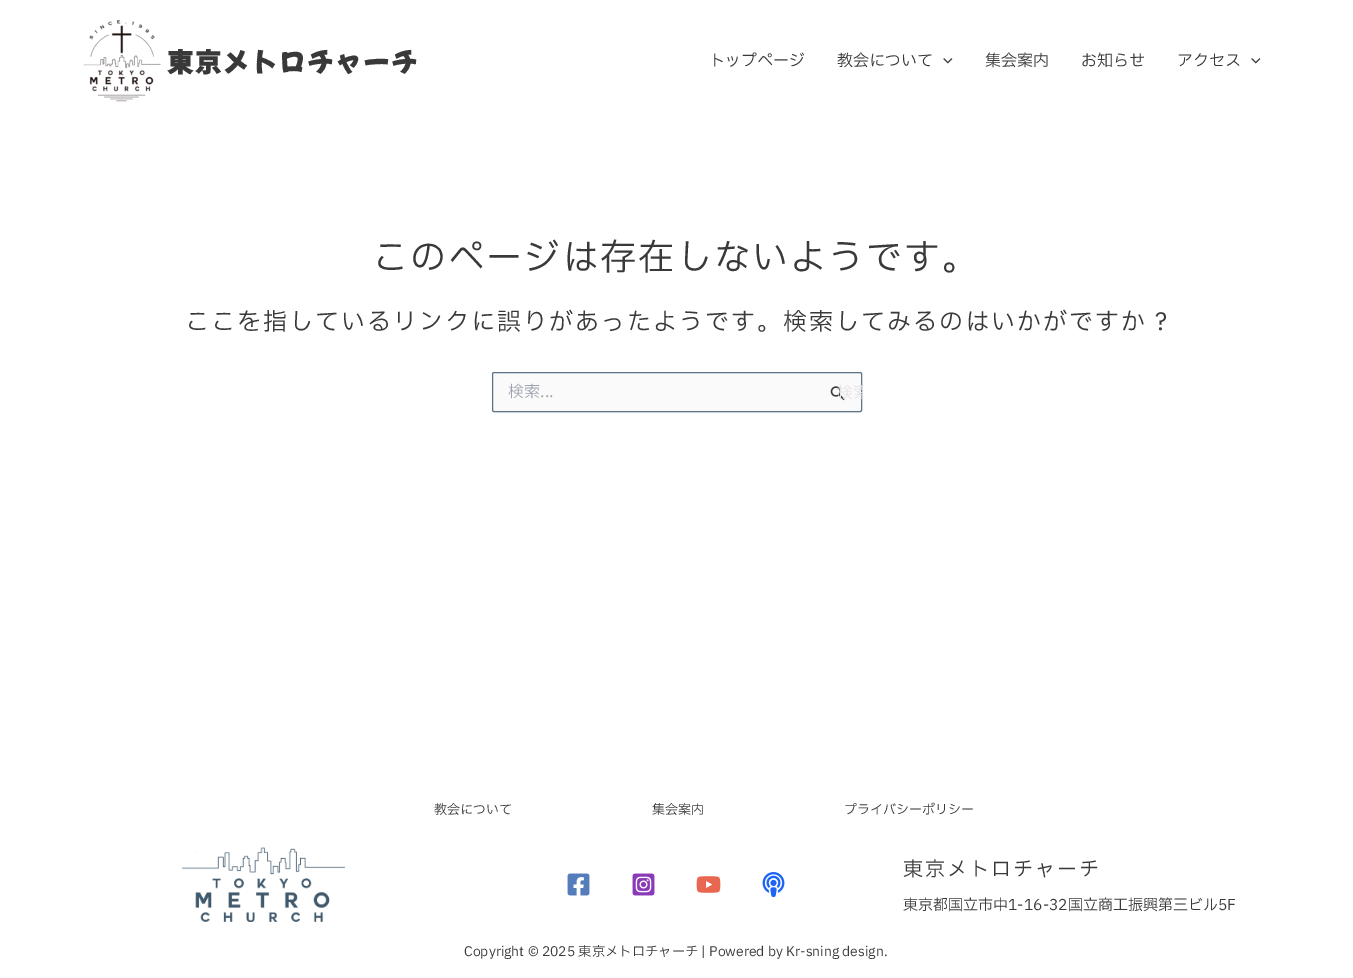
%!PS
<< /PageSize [1353 978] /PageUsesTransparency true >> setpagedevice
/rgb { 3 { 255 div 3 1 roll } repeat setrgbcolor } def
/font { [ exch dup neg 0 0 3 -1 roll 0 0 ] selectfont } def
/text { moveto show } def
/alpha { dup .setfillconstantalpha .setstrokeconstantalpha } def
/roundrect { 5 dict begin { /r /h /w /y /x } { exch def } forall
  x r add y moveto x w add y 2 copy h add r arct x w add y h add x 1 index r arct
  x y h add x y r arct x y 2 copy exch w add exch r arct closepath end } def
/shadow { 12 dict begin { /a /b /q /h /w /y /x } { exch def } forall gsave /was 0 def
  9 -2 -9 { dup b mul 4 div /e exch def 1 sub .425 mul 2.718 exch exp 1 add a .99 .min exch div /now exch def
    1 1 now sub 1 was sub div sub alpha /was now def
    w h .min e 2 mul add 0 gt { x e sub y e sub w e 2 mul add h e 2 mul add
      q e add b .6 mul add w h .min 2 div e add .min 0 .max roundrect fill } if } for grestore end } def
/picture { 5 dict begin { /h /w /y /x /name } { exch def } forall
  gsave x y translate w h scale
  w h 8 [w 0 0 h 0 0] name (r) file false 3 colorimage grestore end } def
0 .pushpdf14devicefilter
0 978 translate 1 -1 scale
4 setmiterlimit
255 255 255 rgb
0 0 1353 978 rectfill
(img_01.rgb) 83 19 78 83 picture
(img_02.rgb) 943 58 10 6 picture
(img_02.rgb) 1251 58 10 6 picture
0 0 0 rgb
492 373 370 40 2 1 0.05 shadow
250 250 250 rgb
492.5 372.5 369 39 1.5 roundrect gsave fill grestore
94 115 133 rgb
stroke
(img_03.rgb) 830 386 15 15 picture
(img_04.rgb) 182 847 163 75 picture
(img_05.rgb) 567 873 23 23 picture
(img_06.rgb) 632 873 23 23 picture
(img_07.rgb) 696 876 25 17 picture
(img_08.rgb) 762 872 23 25 picture
/MochiyPopOne-Bold 26 font
57 57 57 rgb
167 72 moveto 2 0 (東京メトロチャーチ) ashow
/IBMPlexSansJP-Regular 16 font
(トップページ) 709 66 text
(教会について) 837 66 text
(集会案内) 985 66 text
(お知らせ) 1081 66 text
(アクセス) 1177 66 text
/IBMPlexSansJP-Regular 36 font
372 270 moveto 2 0 (このページは存在しないようです。) ashow
/IBMPlexSansJP-Regular 24 font
185 330 moveto 2 0 (ここを指しているリンクに誤りがあったようです。検索してみるのはいかがですか ?) ashow
/IBMPlexSansJP-Regular 16 font
156 163 175 rgb
(検索...) 508 397 text
gsave
817 372 45 42 2 roundrect clip newpath
228 228 229 rgb
(検索) 837 398 text
grestore
/IBMPlexSansJP-Regular 13 font
57 57 57 rgb
(教会について) 434 814 text
(集会案内) 652 814 text
(プライバシーポリシー) 844 814 text
/IBMPlexSansJP-Regular 20 font
903 876 moveto 2 0 (東京メトロチャーチ) ashow
/IBMPlexSansJP-Regular 15 font
(東京都国立市中1-16-32国立商工振興第三ビル5F) 903 910 text
/IBMPlexSansJP-Regular 13.3 font
(Copyright © 2025 東京メトロチャーチ | Powered by Kr-sning design.) 464 956 text
.poppdf14devicefilter showpage
